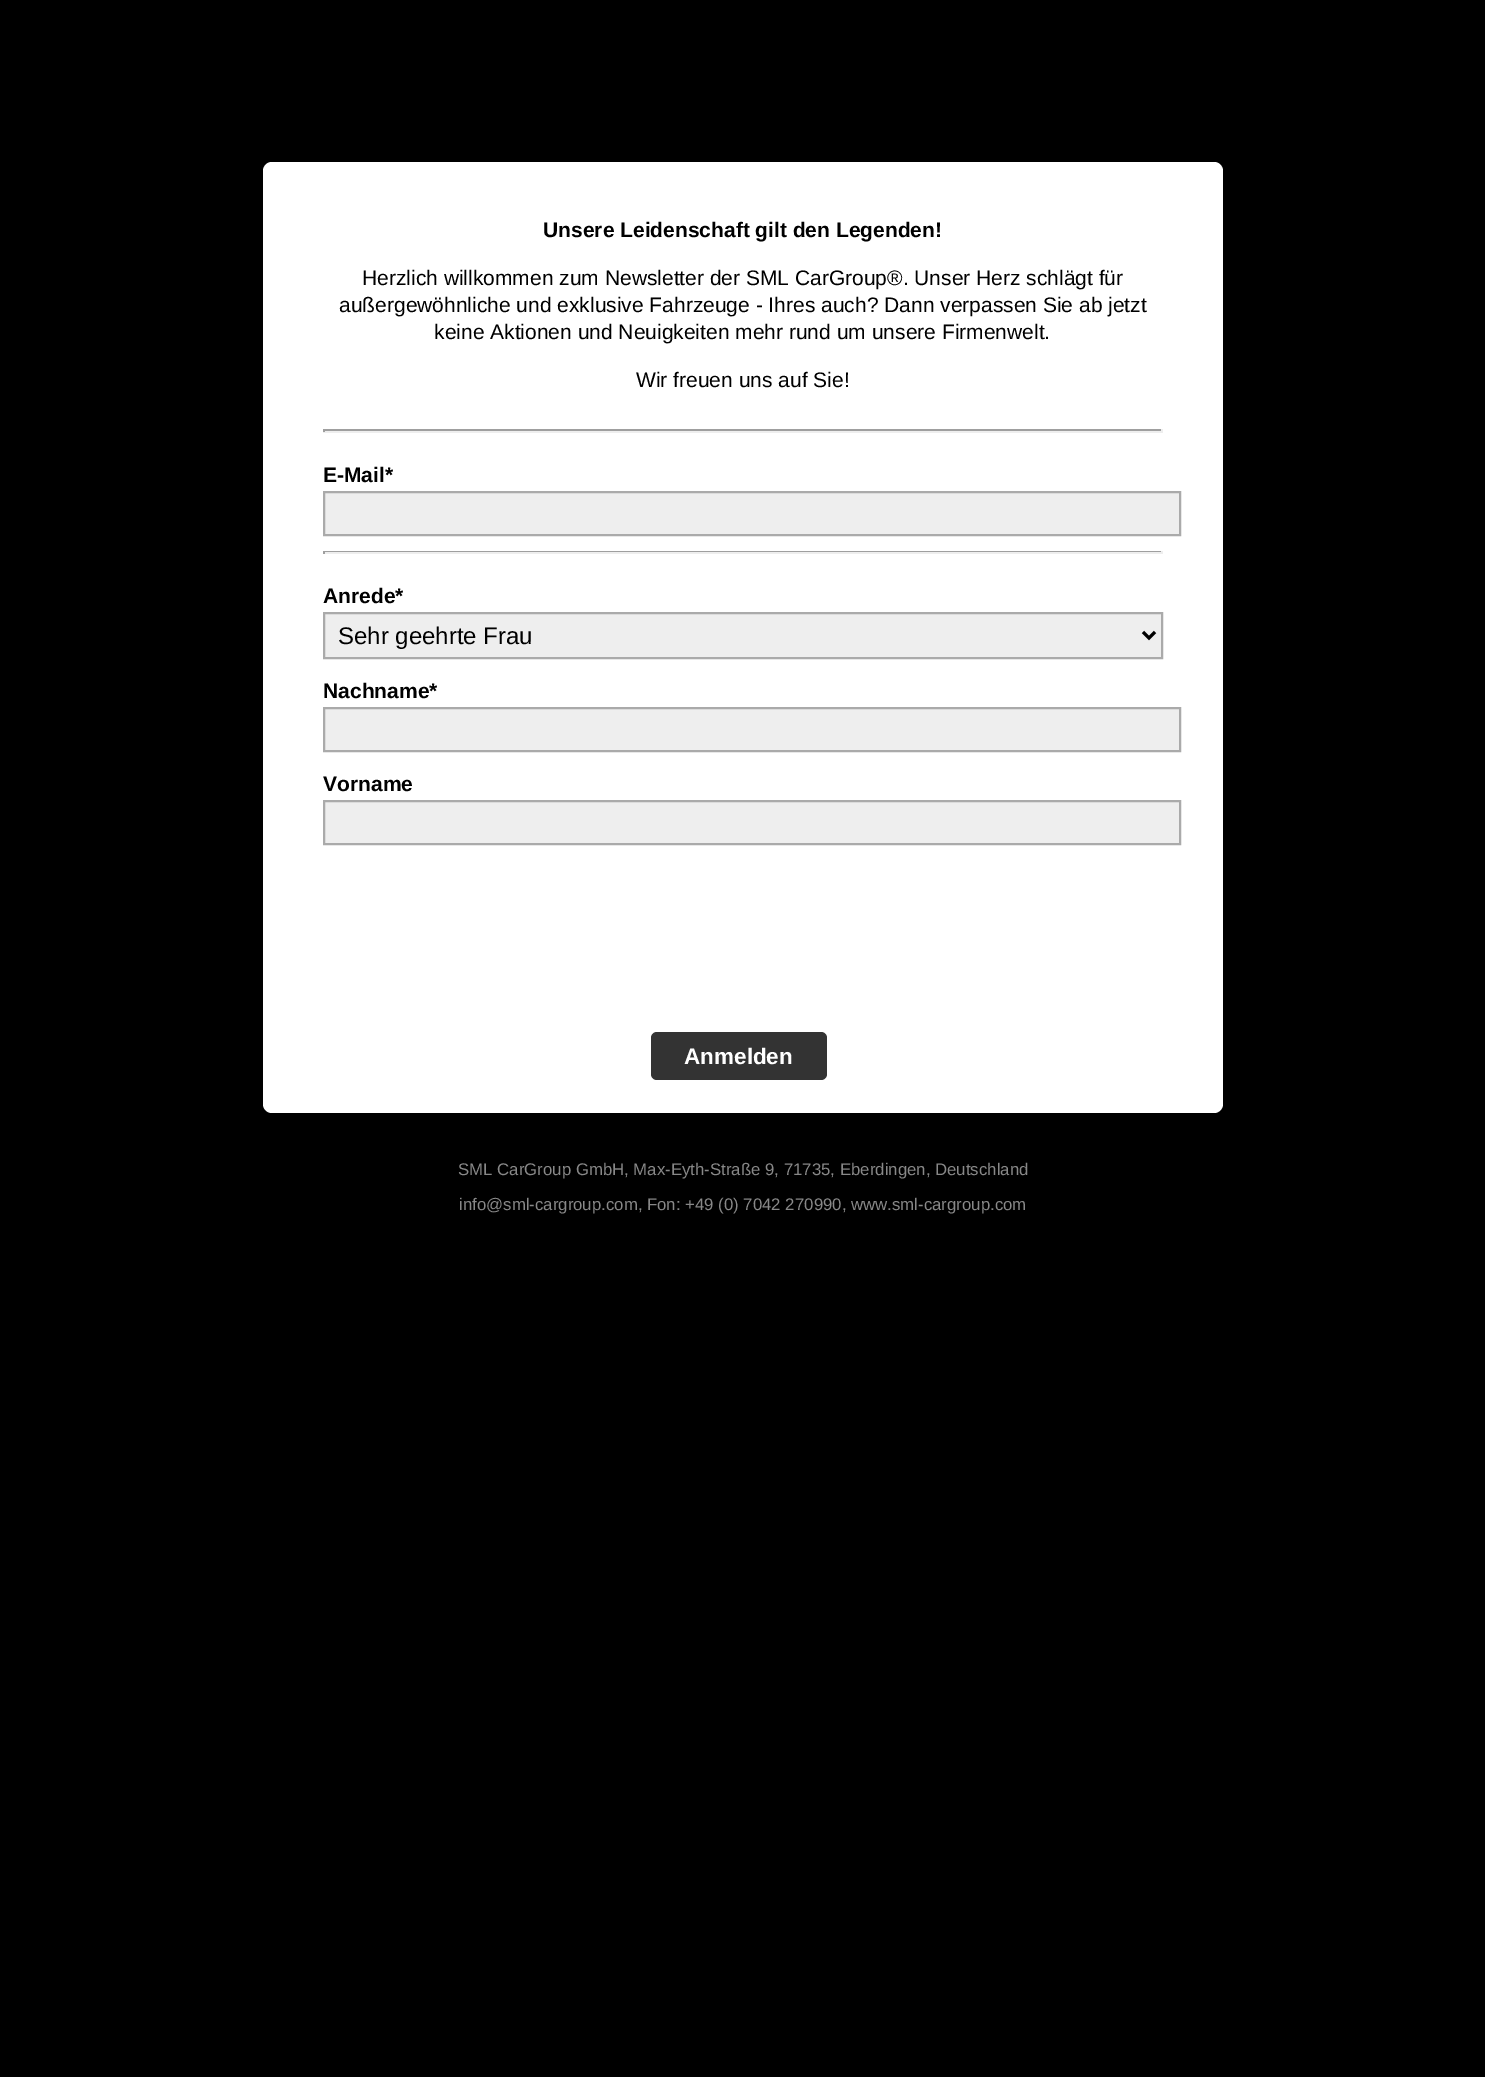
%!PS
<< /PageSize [1485 2077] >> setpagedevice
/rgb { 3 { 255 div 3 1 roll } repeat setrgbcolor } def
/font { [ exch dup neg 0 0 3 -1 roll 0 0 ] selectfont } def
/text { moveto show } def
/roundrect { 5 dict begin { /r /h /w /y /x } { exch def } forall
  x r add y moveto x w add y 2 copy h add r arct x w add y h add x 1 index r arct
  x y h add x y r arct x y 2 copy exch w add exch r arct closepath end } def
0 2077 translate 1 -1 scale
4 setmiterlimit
0 0 0 rgb
0 0 1485 2077 rectfill
255 255 255 rgb
263 162 960 951 9 roundrect fill
159 159 159 rgb
323 429 840 2 rectfill
238 238 238 rgb
1161 429 2 3 rectfill
323 431 840 2 rectfill
159 159 159 rgb
323 429 2 3 rectfill
238 238 238 rgb
324 492 moveto 856 0 rlineto 0 43 rlineto -856 0 rlineto closepath gsave fill grestore
170 170 170 rgb
2 setlinewidth
stroke
159 159 159 rgb
323 551 840 1 rectfill
238 238 238 rgb
1161 551 2 3 rectfill
323 552 840 2 rectfill
159 159 159 rgb
323 551 2 3 rectfill
238 238 238 rgb
324 613 moveto 838 0 rlineto 0 45 rlineto -838 0 rlineto closepath gsave fill grestore
170 170 170 rgb
stroke
0 0 0 rgb
3 setlinewidth
1143 632 moveto 6 6 rlineto 6 -6 rlineto stroke
238 238 238 rgb
324 708 moveto 856 0 rlineto 0 43 rlineto -856 0 rlineto closepath gsave fill grestore
170 170 170 rgb
2 setlinewidth
stroke
238 238 238 rgb
324 801 moveto 856 0 rlineto 0 43 rlineto -856 0 rlineto closepath gsave fill grestore
170 170 170 rgb
stroke
51 51 51 rgb
651 1032 176 48 6 roundrect fill
/LiberationSans-Bold 21 font
0 0 0 rgb
(Unsere Leidenschaft gilt den Legenden!) 543 237 text
/LiberationSans-Regular 21 font
(Herzlich willkommen zum Newsletter der SML CarGroup®. Unser Herz schlägt für) 362 285 text
(außergewöhnliche und exklusive Fahrzeuge - Ihres auch? Dann verpassen Sie ab jetzt) 339 312 text
(keine Aktionen und Neuigkeiten mehr rund um unsere Firmenwelt.) 434 339 text
(Wir freuen uns auf Sie!) 636 387 text
/LiberationSans-Bold 21 font
(E-Mail*) 323 482 text
(Anrede*) 323 603 text
/LiberationSans-Regular 24 font
(Sehr geehrte Frau) 338 644 text
/LiberationSans-Bold 21 font
(Nachname*) 323 698 text
(Vorname) 323 791 text
/LiberationSans-Bold 22.5 font
255 255 255 rgb
(Anmelden) 684 1064 text
/LiberationSans-Regular 16.8 font
136 136 136 rgb
(SML CarGroup GmbH, Max-Eyth-Straße 9, 71735, Eberdingen, Deutschland) 458 1175 text
(info@sml-cargroup.com, Fon: +49 \(0\) 7042 270990, www.sml-cargroup.com) 459 1210 text
showpage
